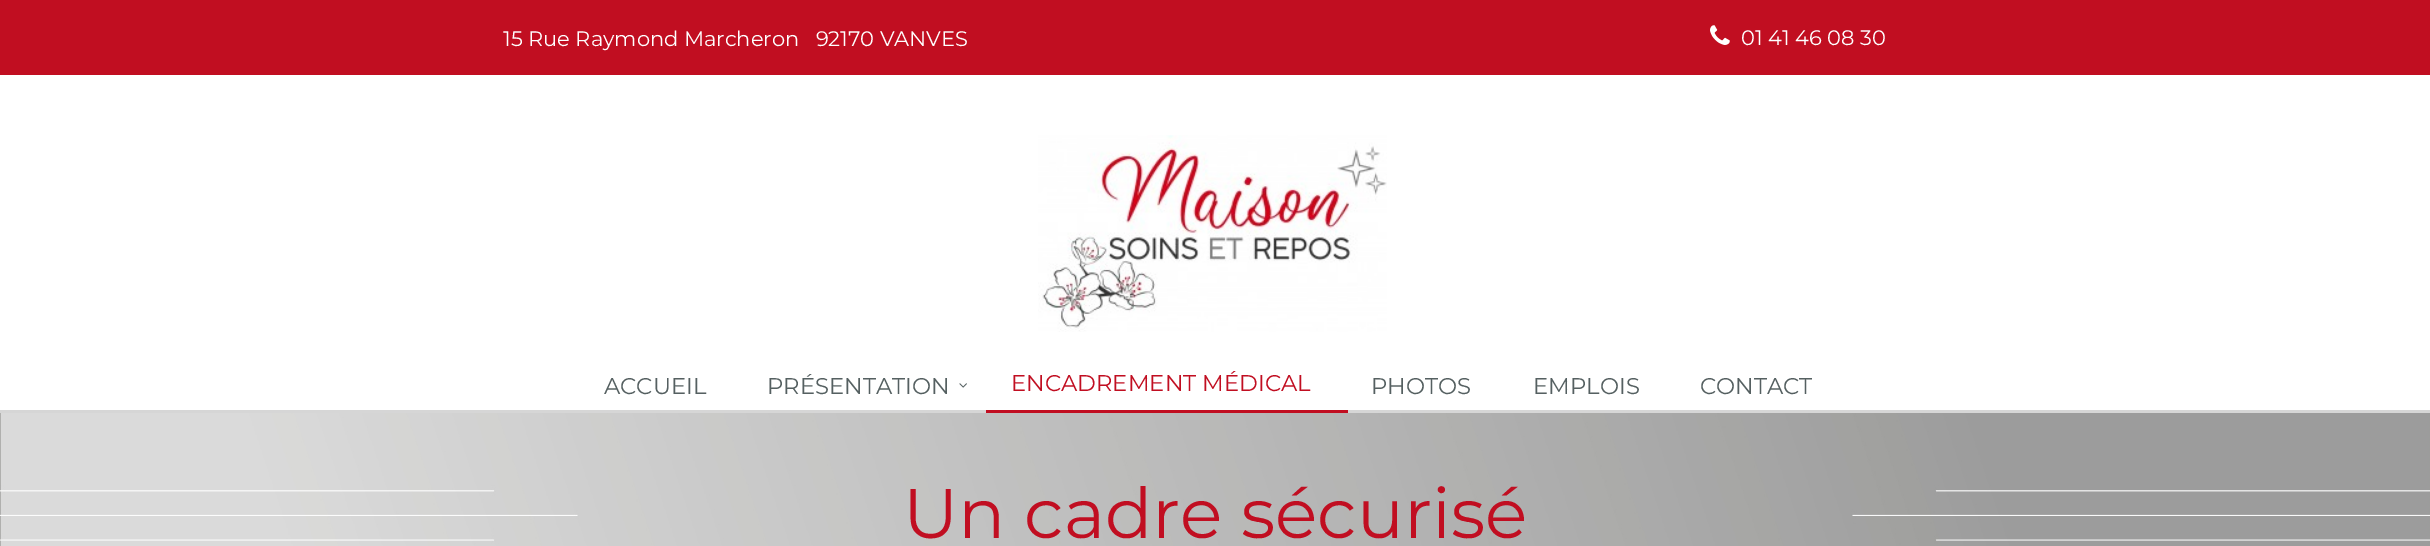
%!PS
<< /PageSize [2430 546] >> setpagedevice
/rgb { 3 { 255 div 3 1 roll } repeat setrgbcolor } def
/font { [ exch dup neg 0 0 3 -1 roll 0 0 ] selectfont } def
/text { moveto show } def
/picture { 5 dict begin { /h /w /y /x /name } { exch def } forall
  gsave x y translate w h scale
  w h 8 [w 0 0 h 0 0] name (r) file false 3 colorimage grestore end } def
0 546 translate 1 -1 scale
4 setmiterlimit
255 255 255 rgb
0 0 2430 546 rectfill
214 214 214 rgb
0 410 2430 3 rectfill
193 14 33 rgb
0 0 2430 75 rectfill
(img_01.rgb) 1710 25 20 20 picture
(img_02.rgb) 1038 135 349 197 picture
(img_03.rgb) 959 383 8 5 picture
986 410 362 3 rectfill
(img_04.rgb) 0 413 2430 133 picture
/Montserrat-Thin 21 font
255 255 255 rgb
(15 Rue Raymond Marcheron   92170 VANVES) 503 46 text
(01 41 46 08 30) 1741 45 text
/Montserrat-Thin 22.75 font
85 96 97 rgb
(ACCUEIL) 604 394 text
(PRÉSENTATION) 767 394 text
193 14 33 rgb
(ENCADREMENT MÉDICAL) 1011 391 text
85 96 97 rgb
(PHOTOS) 1371 394 text
(EMPLOIS) 1533 394 text
(CONTACT) 1700 394 text
/Montserrat-Thin 70 font
193 14 33 rgb
(Un cadre sécurisé) 903 538 text
showpage
